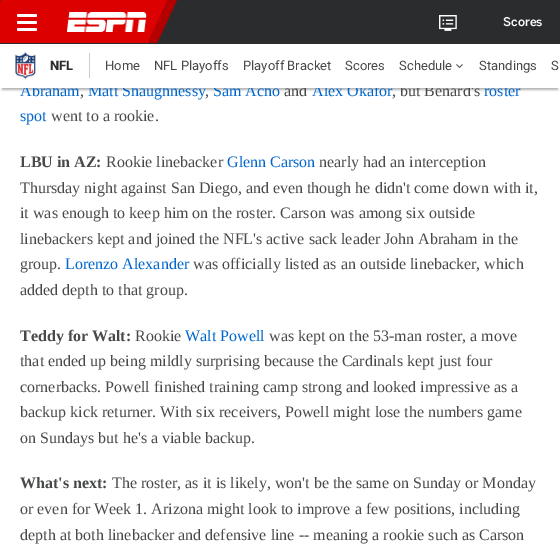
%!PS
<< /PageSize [560 560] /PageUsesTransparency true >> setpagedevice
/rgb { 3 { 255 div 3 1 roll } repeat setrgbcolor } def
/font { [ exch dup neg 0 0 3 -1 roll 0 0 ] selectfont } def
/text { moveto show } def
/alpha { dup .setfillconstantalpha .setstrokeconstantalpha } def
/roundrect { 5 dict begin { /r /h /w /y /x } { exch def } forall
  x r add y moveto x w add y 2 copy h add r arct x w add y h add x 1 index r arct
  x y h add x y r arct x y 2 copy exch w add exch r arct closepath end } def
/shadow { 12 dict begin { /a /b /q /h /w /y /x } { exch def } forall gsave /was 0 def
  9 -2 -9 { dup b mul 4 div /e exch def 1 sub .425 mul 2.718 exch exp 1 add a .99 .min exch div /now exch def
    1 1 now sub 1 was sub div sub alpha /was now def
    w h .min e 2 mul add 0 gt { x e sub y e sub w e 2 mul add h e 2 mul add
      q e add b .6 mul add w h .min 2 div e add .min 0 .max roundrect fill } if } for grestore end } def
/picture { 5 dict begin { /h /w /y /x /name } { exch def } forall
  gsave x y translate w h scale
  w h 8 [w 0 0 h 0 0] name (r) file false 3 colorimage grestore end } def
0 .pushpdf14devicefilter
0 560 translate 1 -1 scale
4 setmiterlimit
255 255 255 rgb
0 0 560 560 rectfill
43 44 45 rgb
0 0 560 44 rectfill
180 0 0 rgb
54 0 moveto 123 0 rlineto -20 43 rlineto -123 0 rlineto closepath fill
221 0 0 rgb
1 0 moveto 166 0 rlineto -20 43 rlineto -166 0 rlineto closepath fill
(img_01.rgb) 67 12 80 20 picture
255 255 255 rgb
17 21 20 3 1.5 roundrect fill
17 14 20 3 1.5 roundrect fill
17 28 20 3 1.5 roundrect fill
(img_02.rgb) 439 15 18 16 picture
0 0 0 rgb
2 50 556 40 0 1 0.3 shadow
/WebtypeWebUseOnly-Medium 12 font
255 255 255 rgb
(Scores) 503 26 text
/LiberationSerif-Regular 16 font
0 102 204 rgb
(Abraham) 20 96 text
72 73 74 rgb
(,) 80 96 text
0 102 204 rgb
(Matt Shaughnessy) 88 96 text
72 73 74 rgb
(,) 205 96 text
0 102 204 rgb
(Sam Acho) 213 96 text
72 73 74 rgb
(and) 284 96 text
0 102 204 rgb
(Alex Okafor) 312 96 text
72 73 74 rgb
(, but Benard's) 392 96 text
0 102 204 rgb
(roster) 484 96 text
255 255 255 rgb
0 44 560 44 1 roundrect fill
/Roboto-Regular 13 font
72 73 74 rgb
(S) 551 70 text
(Standings) 479 70 text
(img_04.rgb) 456 64 7 5 picture
(Schedule) 399 70 text
(Scores) 345 70 text
(Playoff Bracket) 243 70 text
(NFL Playoffs) 154 70 text
(Home) 105 70 text
203 204 206 rgb
89 53 1 25 rectfill
(img_03.rgb) 14 51 22 29 picture
/Roboto-ExtraBold 13 font
43 44 45 rgb
(NFL) 50 70 text
/LiberationSerif-Regular 16 font
0 102 204 rgb
(spot) 20 121 text
72 73 74 rgb
(went to a rookie.) 51 121 text
/LiberationSerif-Bold 16 font
(LBU in AZ:) 20 167 text
/LiberationSerif-Regular 16 font
(Rookie linebacker) 106 167 text
0 102 204 rgb
(Glenn Carson) 227 167 text
72 73 74 rgb
(nearly had an interception) 319 167 text
(Thursday night against San Diego, and even though he didn't come down with it,) 20 193 text
(it was enough to keep him on the roster. Carson was among six outside) 20 218 text
(linebackers kept and joined the NFL's active sack leader John Abraham in the) 20 244 text
(group.) 20 269 text
0 102 204 rgb
(Lorenzo Alexander) 65 269 text
72 73 74 rgb
(was officially listed as an outside linebacker, which) 193 269 text
(added depth to that group.) 20 295 text
/LiberationSerif-Bold 16 font
(Teddy for Walt:) 20 341 text
/LiberationSerif-Regular 16 font
(Rookie) 135 341 text
0 102 204 rgb
(Walt Powell) 185 341 text
72 73 74 rgb
(was kept on the 53-man roster, a move) 269 341 text
(that ended up being mildly surprising because the Cardinals kept just four) 20 366 text
(cornerbacks. Powell finished training camp strong and looked impressive as a) 20 392 text
(backup kick returner. With six receivers, Powell might lose the numbers game) 20 417 text
(on Sundays but he's a viable backup.) 20 443 text
/LiberationSerif-Bold 16 font
(What's next:) 20 488 text
/LiberationSerif-Regular 16 font
(The roster, as it is likely, won't be the same on Sunday or Monday) 112 488 text
(or even for Week 1. Arizona might look to improve a few positions, including) 20 514 text
(depth at both linebacker and defensive line -- meaning a rookie such as Carson) 20 540 text
.poppdf14devicefilter showpage
